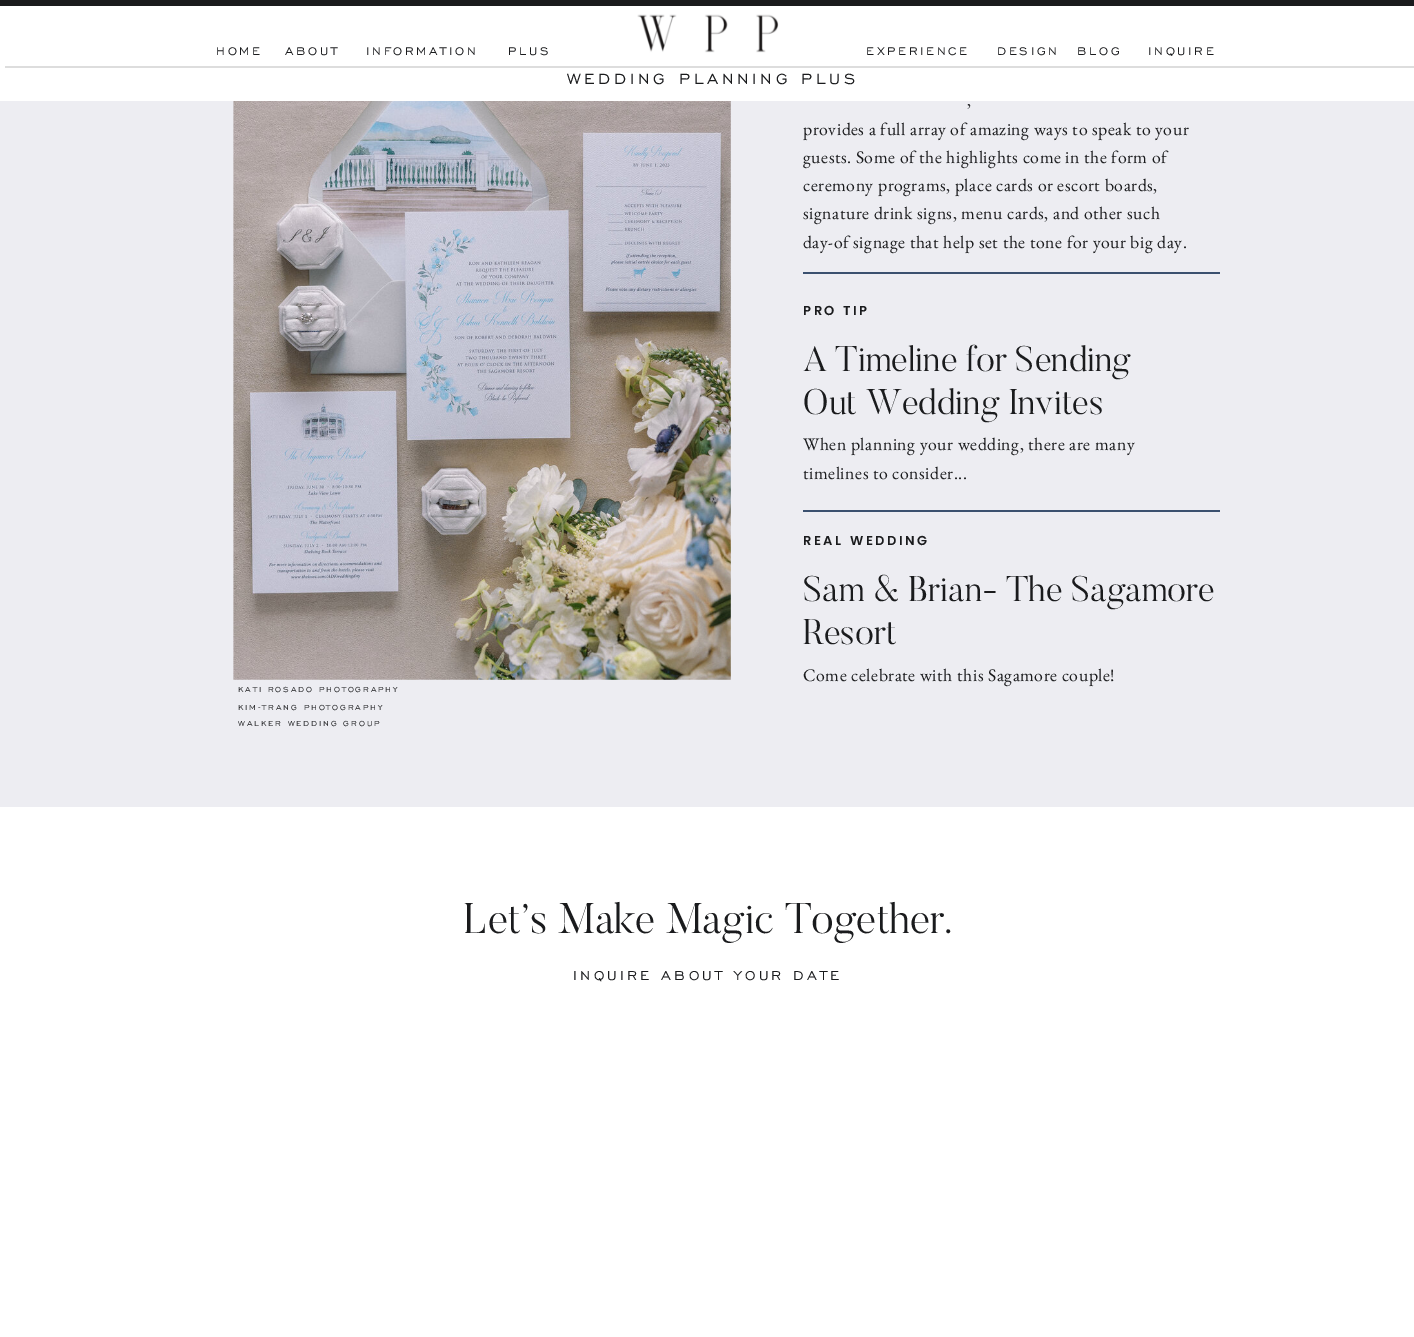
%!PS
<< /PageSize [1414 1337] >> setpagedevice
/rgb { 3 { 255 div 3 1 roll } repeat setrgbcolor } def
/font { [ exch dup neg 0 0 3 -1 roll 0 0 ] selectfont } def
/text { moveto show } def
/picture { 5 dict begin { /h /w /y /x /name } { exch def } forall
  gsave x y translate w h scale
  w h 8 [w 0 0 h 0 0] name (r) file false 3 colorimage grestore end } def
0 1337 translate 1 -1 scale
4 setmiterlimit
255 255 255 rgb
0 0 1414 1337 rectfill
26 27 29 rgb
0 0 1414 6 rectfill
(img_01.rgb) 637 14 142 39 picture
221 221 221 rgb
5 66 1409 2 rectfill
237 237 242 rgb
0 101 1414 706 rectfill
(img_02.rgb) 233 101 498 579 picture
59 80 111 rgb
803 272 417 2 rectfill
803 510 417 2 rectfill
/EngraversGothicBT-Regular 14.25 font
26 27 29 rgb
216 55 moveto 2.75 0 (HOME) ashow
285 55 moveto 2.75 0 (ABOUT) ashow
366 55 moveto 2.75 0 (INFORMATION) ashow
508 55 moveto 2.75 0 (PLUS) ashow
866 55 moveto 2.75 0 (EXPERIENCE) ashow
997 55 moveto 2.75 0 (DESIGN) ashow
1077 55 moveto 2.75 0 (BLOG) ashow
1148 55 moveto 2.75 0 (INQUIRE) ashow
/EngraversGothicBT-Regular 18.9 font
567 84 moveto 3.75 0 (WEDDING PLANNING PLUS) ashow
/EBGaramond-Regular 17.7 font
967 106 moveto 0.53 0 (,) ashow
803 135 moveto 0.53 0 (provides a full array of amazing ways to speak to your) ashow
803 163 moveto 0.53 0 (guests. Some of the highlights come in the form of) ashow
803 191 moveto 0.53 0 (ceremony programs, place cards or escort boards,) ashow
803 219 moveto 0.53 0 (signature drink signs, menu cards, and other such) ashow
803 248 moveto 0.53 0 (day-of signage that help set the tone for your big day.) ashow
/Poppins-SemiBold 13 font
803 315 moveto 2.6 0 (PRO TIP) ashow
/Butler-Light 35.4 font
(A Timeline for Sending) 803 371 text
(Out Wedding Invites) 803 414 text
/EBGaramond-Regular 17.7 font
803 450 moveto 0.53 0 (When planning your wedding, there are many) ashow
803 479 moveto 0.53 0 (timelines to consider...) ashow
/Poppins-SemiBold 13 font
803 545 moveto 2.6 0 (REAL WEDDING) ashow
/Butler-Light 35.4 font
(Sam & Brian- The Sagamore) 803 601 text
(Resort) 803 644 text
/EBGaramond-Regular 17.7 font
803 681 moveto 0.53 0 (Come celebrate with this Sagamore couple!) ashow
/EngraversGothicBT-Regular 9.4 font
238 692 moveto 1.9 0 (KATI ROSADO PHOTOGRAPHY) ashow
238 710 moveto 1.9 0 (KIM-TRANG PHOTOGRAPHY) ashow
238 726 moveto 1.9 0 (WALKER WEDDING GROUP) ashow
/Butler-Light 42.5 font
(Let’s Make Magic Together.) 463 933 text
/EngraversGothicBT-Regular 16.5 font
573 980 moveto 3.3 0 (INQUIRE ABOUT YOUR DATE) ashow
showpage
